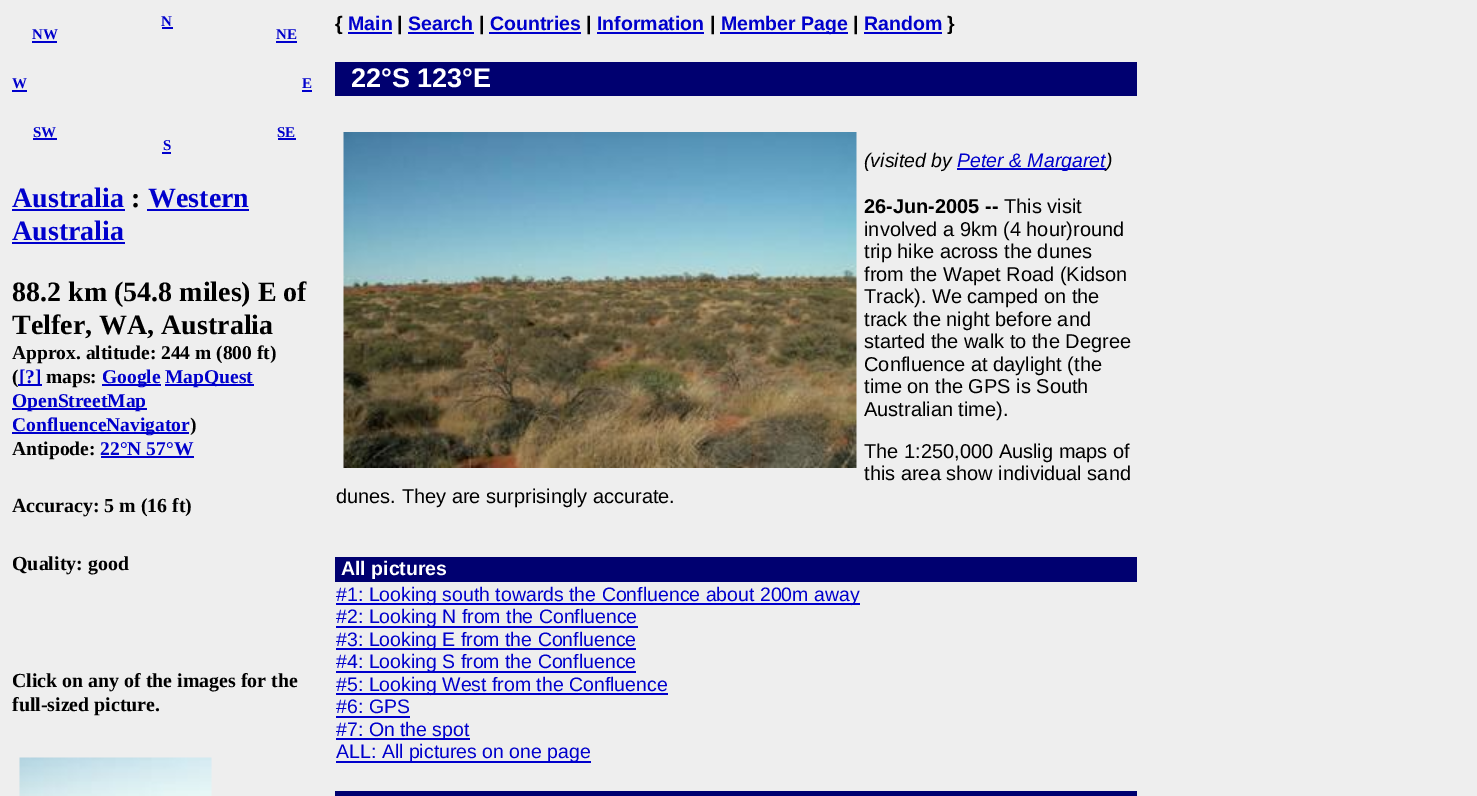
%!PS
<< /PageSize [1477 796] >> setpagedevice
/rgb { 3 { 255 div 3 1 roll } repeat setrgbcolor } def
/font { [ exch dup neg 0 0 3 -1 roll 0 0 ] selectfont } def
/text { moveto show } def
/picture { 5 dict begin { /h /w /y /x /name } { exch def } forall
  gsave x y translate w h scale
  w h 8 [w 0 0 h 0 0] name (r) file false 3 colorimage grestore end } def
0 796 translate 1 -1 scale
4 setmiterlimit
238 238 238 rgb
0 0 1477 796 rectfill
0 0 204 rgb
12 90 15 2 rectfill
162 27 11 2 rectfill
32 41 25 2 rectfill
276 41 21 2 rectfill
33 138 24 2 rectfill
278 138 18 2 rectfill
162 152 9 2 rectfill
302 90 10 2 rectfill
12 209 113 2 rectfill
147 209 102 2 rectfill
12 242 113 2 rectfill
18 384 24 2 rectfill
102 384 59 2 rectfill
165 384 89 2 rectfill
12 408 135 2 rectfill
12 432 177 2 rectfill
101 456 93 2 rectfill
(img_01.rgb) 19 757 193 39 picture
348 32 44 2 rectfill
408 32 66 2 rectfill
489 32 92 2 rectfill
597 32 107 2 rectfill
720 32 128 2 rectfill
864 32 78 2 rectfill
0 0 112 rgb
335 62 802 34 rectfill
(img_02.rgb) 343 132 514 336 picture
0 0 204 rgb
957 168 149 2 rectfill
0 0 112 rgb
335 557 802 25 rectfill
0 0 204 rgb
336 603 524 2 rectfill
336 626 302 2 rectfill
336 648 300 2 rectfill
336 671 300 2 rectfill
336 693 332 2 rectfill
336 716 74 2 rectfill
336 738 134 2 rectfill
336 761 255 2 rectfill
0 0 112 rgb
335 791 802 5 rectfill
/LiberationSerif-Bold 15 font
0 0 204 rgb
(W) 12 88 text
(N) 161 26 text
(NW) 32 39 text
(NE) 276 39 text
(SW) 33 137 text
(SE) 277 137 text
(S) 163 150 text
(E) 302 88 text
/LiberationSerif-Bold 28 font
(Australia) 12 207 text
0 0 0 rgb
(:) 131 207 text
0 0 204 rgb
(Western) 148 207 text
(Australia) 12 240 text
0 0 0 rgb
(88.2 km \(54.8 miles\) E of) 12 301 text
(Telfer, WA, Australia) 12 334 text
/LiberationSerif-Bold 19.5 font
(Approx. altitude: 244 m \(800 ft\)) 12 359 text
(\() 12 383 text
0 0 204 rgb
([?]) 19 383 text
0 0 0 rgb
(maps:) 46 383 text
0 0 204 rgb
(Google) 102 383 text
(MapQuest) 165 383 text
(OpenStreetMap) 12 407 text
(ConfluenceNavigator) 12 431 text
0 0 0 rgb
(\)) 190 431 text
(Antipode:) 12 455 text
0 0 204 rgb
(22°N 57°W) 100 455 text
/LiberationSerif-Bold 19.9 font
0 0 0 rgb
(Accuracy: 5 m \(16 ft\)) 12 512 text
(Quality: good) 12 570 text
(Click on any of the images for the) 12 687 text
(full-sized picture.) 12 711 text
/LiberationSans-Bold 19.5 font
({) 335 30 text
0 0 204 rgb
(Main) 348 30 text
0 0 0 rgb
(|) 397 30 text
0 0 204 rgb
(Search) 408 30 text
0 0 0 rgb
(|) 479 30 text
0 0 204 rgb
(Countries) 490 30 text
0 0 0 rgb
(|) 586 30 text
0 0 204 rgb
(Information) 597 30 text
0 0 0 rgb
(|) 710 30 text
0 0 204 rgb
(Member Page) 721 30 text
0 0 0 rgb
(|) 853 30 text
0 0 204 rgb
(Random) 864 30 text
0 0 0 rgb
(}) 947 30 text
/LiberationSans-Bold 27 font
255 255 255 rgb
(22°S 123°E) 351 87 text
/LiberationSans-Italic 19.5 font
0 0 0 rgb
(\(visited by) 864 167 text
0 0 204 rgb
(Peter & Margaret) 957 167 text
0 0 0 rgb
(\)) 1106 167 text
/LiberationSans-Bold 20 font
(26-Jun-2005 --) 864 213 text
/LiberationSans-Regular 20 font
(This visit) 1004 213 text
(involved a 9km \(4 hour\)round) 864 236 text
(trip hike across the dunes) 864 258 text
(from the Wapet Road \(Kidson) 864 281 text
(Track\). We camped on the) 864 303 text
(track the night before and) 864 326 text
(started the walk to the Degree) 864 348 text
(Confluence at daylight \(the) 864 371 text
(time on the GPS is South) 864 393 text
(Australian time\).) 864 416 text
(The 1:250,000 Auslig maps of) 864 458 text
(this area show individual sand) 864 480 text
(dunes. They are surprisingly accurate.) 336 503 text
/LiberationSans-Bold 19.5 font
255 255 255 rgb
(All pictures) 341 575 text
/LiberationSans-Regular 19.5 font
0 0 204 rgb
(#1: Looking south towards the Confluence about 200m away) 336 601 text
(#2: Looking N from the Confluence) 336 623 text
(#3: Looking E from the Confluence) 336 646 text
(#4: Looking S from the Confluence) 336 668 text
(#5: Looking West from the Confluence) 336 691 text
(#6: GPS) 336 713 text
(#7: On the spot) 336 736 text
(ALL: All pictures on one page) 336 758 text
showpage
